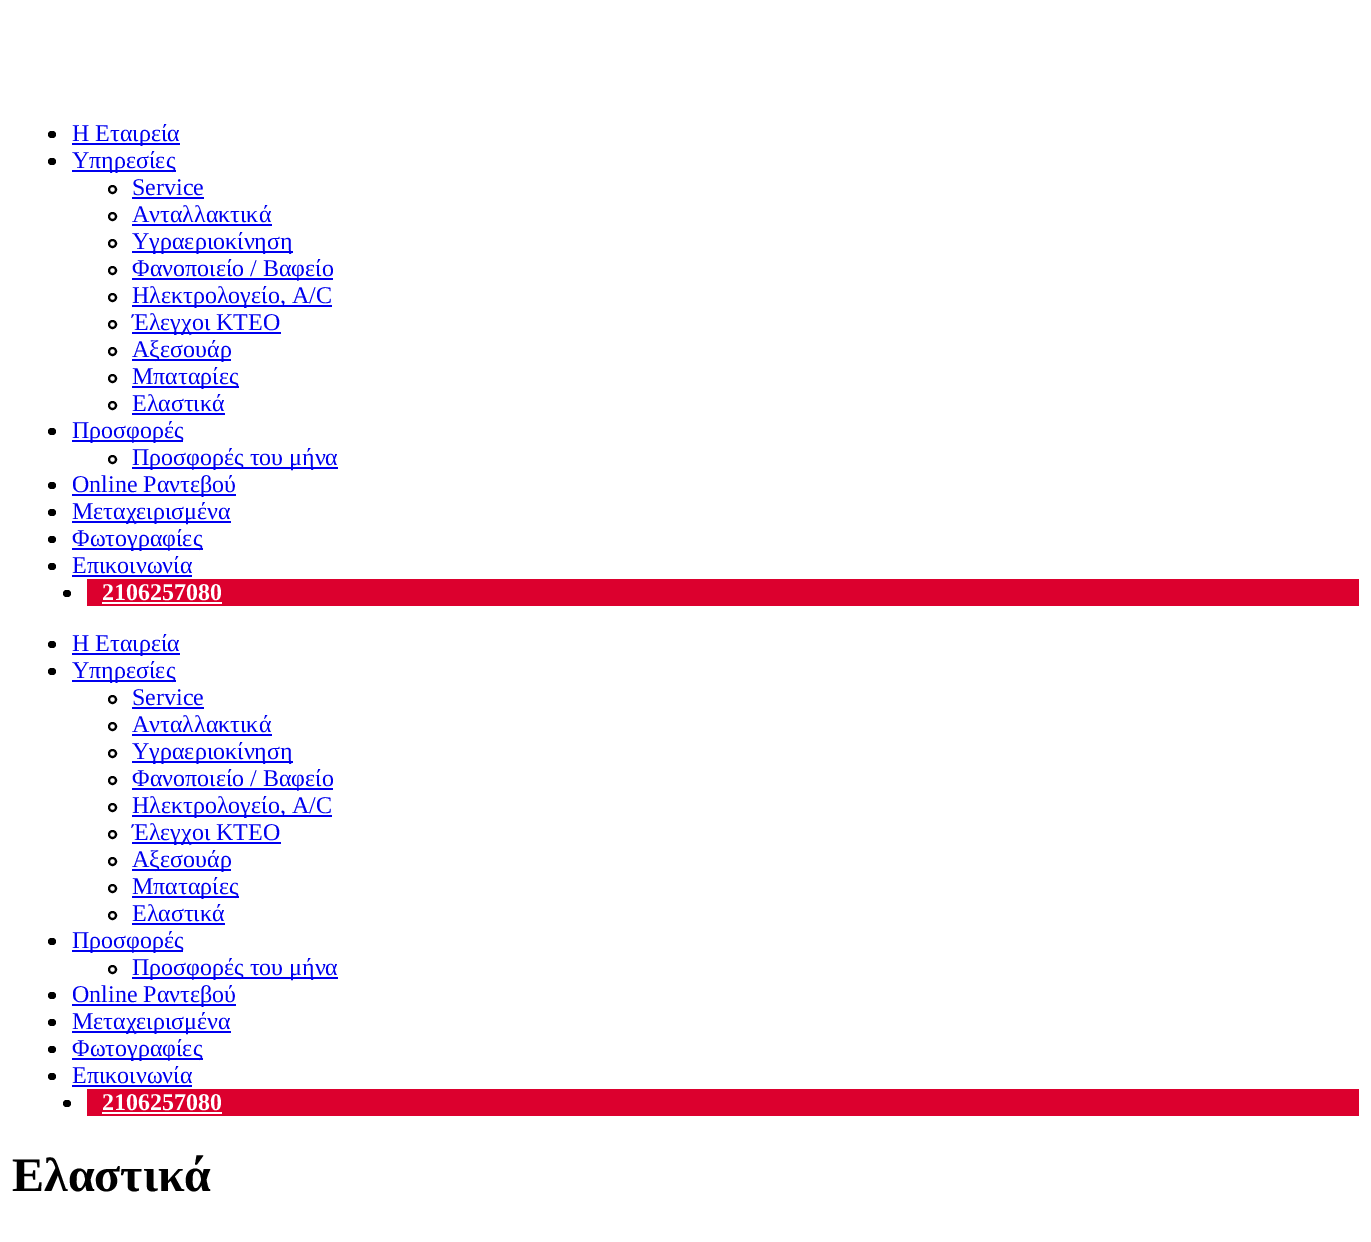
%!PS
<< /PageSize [1371 1242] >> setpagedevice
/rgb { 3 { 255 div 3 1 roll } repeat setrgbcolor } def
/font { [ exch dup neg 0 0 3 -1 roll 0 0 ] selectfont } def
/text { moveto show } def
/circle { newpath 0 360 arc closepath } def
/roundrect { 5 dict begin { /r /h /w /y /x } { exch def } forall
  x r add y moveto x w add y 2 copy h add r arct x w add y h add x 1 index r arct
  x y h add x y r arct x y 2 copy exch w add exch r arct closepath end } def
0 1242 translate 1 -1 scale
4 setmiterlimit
255 255 255 rgb
0 0 1371 1242 rectfill
0 0 0 rgb
48 131 8 7 3.5 roundrect fill
0 0 238 rgb
72 143 108 2 rectfill
0 0 0 rgb
48 158 8 7 3.5 roundrect fill
0 0 238 rgb
72 170 104 2 rectfill
0 0 0 rgb
2 setlinewidth
112.5 189.5 3.5 circle stroke
0 0 238 rgb
132 197 72 2 rectfill
0 0 0 rgb
112.5 216.5 3.5 circle stroke
0 0 238 rgb
132 224 140 2 rectfill
0 0 0 rgb
112.5 243.5 3.5 circle stroke
0 0 238 rgb
132 251 161 2 rectfill
0 0 0 rgb
112.5 270.5 3.5 circle stroke
0 0 238 rgb
132 278 201 2 rectfill
0 0 0 rgb
112.5 297.5 3.5 circle stroke
0 0 238 rgb
132 305 200 2 rectfill
0 0 0 rgb
112.5 324.5 3.5 circle stroke
0 0 238 rgb
132 332 149 2 rectfill
0 0 0 rgb
112.5 351.5 3.5 circle stroke
0 0 238 rgb
132 359 99 2 rectfill
0 0 0 rgb
112.5 378.5 3.5 circle stroke
0 0 238 rgb
132 386 107 2 rectfill
0 0 0 rgb
112.5 405.5 3.5 circle stroke
0 0 238 rgb
132 413 93 2 rectfill
0 0 0 rgb
48 428 8 7 3.5 roundrect fill
0 0 238 rgb
72 440 111 2 rectfill
0 0 0 rgb
112.5 459.5 3.5 circle stroke
0 0 238 rgb
132 467 206 2 rectfill
0 0 0 rgb
48 482 8 7 3.5 roundrect fill
0 0 238 rgb
72 494 164 2 rectfill
0 0 0 rgb
48 509 8 7 3.5 roundrect fill
0 0 238 rgb
72 521 159 2 rectfill
0 0 0 rgb
48 536 8 7 3.5 roundrect fill
0 0 238 rgb
72 548 131 2 rectfill
0 0 0 rgb
48 563 8 7 3.5 roundrect fill
0 0 238 rgb
72 575 120 2 rectfill
220 0 46 rgb
87 579 1272 27 rectfill
0 0 0 rgb
63 590 8 7 3.5 roundrect fill
255 255 255 rgb
102 602 120 2 rectfill
0 0 0 rgb
48 641 8 7 3.5 roundrect fill
0 0 238 rgb
72 653 108 2 rectfill
0 0 0 rgb
48 668 8 7 3.5 roundrect fill
0 0 238 rgb
72 680 104 2 rectfill
0 0 0 rgb
112.5 699.5 3.5 circle stroke
0 0 238 rgb
132 707 72 2 rectfill
0 0 0 rgb
112.5 726.5 3.5 circle stroke
0 0 238 rgb
132 734 140 2 rectfill
0 0 0 rgb
112.5 753.5 3.5 circle stroke
0 0 238 rgb
132 761 161 2 rectfill
0 0 0 rgb
112.5 780.5 3.5 circle stroke
0 0 238 rgb
132 788 201 2 rectfill
0 0 0 rgb
112.5 807.5 3.5 circle stroke
0 0 238 rgb
132 815 200 2 rectfill
0 0 0 rgb
112.5 834.5 3.5 circle stroke
0 0 238 rgb
132 842 149 2 rectfill
0 0 0 rgb
112.5 861.5 3.5 circle stroke
0 0 238 rgb
132 869 99 2 rectfill
0 0 0 rgb
112.5 888.5 3.5 circle stroke
0 0 238 rgb
132 896 107 2 rectfill
0 0 0 rgb
112.5 915.5 3.5 circle stroke
0 0 238 rgb
132 923 93 2 rectfill
0 0 0 rgb
48 938 8 7 3.5 roundrect fill
0 0 238 rgb
72 950 111 2 rectfill
0 0 0 rgb
112.5 969.5 3.5 circle stroke
0 0 238 rgb
132 977 206 2 rectfill
0 0 0 rgb
48 992 8 7 3.5 roundrect fill
0 0 238 rgb
72 1004 164 2 rectfill
0 0 0 rgb
48 1019 8 7 3.5 roundrect fill
0 0 238 rgb
72 1031 159 2 rectfill
0 0 0 rgb
48 1046 8 7 3.5 roundrect fill
0 0 238 rgb
72 1058 131 2 rectfill
0 0 0 rgb
48 1073 8 7 3.5 roundrect fill
0 0 238 rgb
72 1085 120 2 rectfill
220 0 46 rgb
87 1089 1272 27 rectfill
0 0 0 rgb
63 1100 8 7 3.5 roundrect fill
255 255 255 rgb
102 1112 120 2 rectfill
/LiberationSerif-Regular 24 font
0 0 238 rgb
(Η Eταιρεία) 72 141 text
(Υπηρεσίες) 72 168 text
(Service) 132 195 text
(Ανταλλακτικά) 132 222 text
(Υγραεριοκίνηση) 132 249 text
(Φανοποιείο / Βαφείο) 132 276 text
(Ηλεκτρολογείο, A/C) 132 303 text
(Έλεγχοι ΚΤΕΟ) 132 330 text
(Aξεσουάρ) 132 357 text
(Μπαταρίες) 132 384 text
(Ελαστικά) 132 411 text
(Προσφορές) 72 438 text
(Προσφορές του μήνα) 132 465 text
(Online Ραντεβού) 72 492 text
(Μεταχειρισμένα) 72 519 text
(Φωτογραφίες) 72 546 text
(Επικοινωνία) 72 573 text
/LiberationSerif-Bold 24 font
255 255 255 rgb
(2106257080) 102 600 text
/LiberationSerif-Regular 24 font
0 0 238 rgb
(Η Eταιρεία) 72 651 text
(Υπηρεσίες) 72 678 text
(Service) 132 705 text
(Ανταλλακτικά) 132 732 text
(Υγραεριοκίνηση) 132 759 text
(Φανοποιείο / Βαφείο) 132 786 text
(Ηλεκτρολογείο, A/C) 132 813 text
(Έλεγχοι ΚΤΕΟ) 132 840 text
(Aξεσουάρ) 132 867 text
(Μπαταρίες) 132 894 text
(Ελαστικά) 132 921 text
(Προσφορές) 72 948 text
(Προσφορές του μήνα) 132 975 text
(Online Ραντεβού) 72 1002 text
(Μεταχειρισμένα) 72 1029 text
(Φωτογραφίες) 72 1056 text
(Επικοινωνία) 72 1083 text
/LiberationSerif-Bold 24 font
255 255 255 rgb
(2106257080) 102 1110 text
/LiberationSerif-Bold 48 font
0 0 0 rgb
(Ελαστικά) 12 1191 text
showpage
